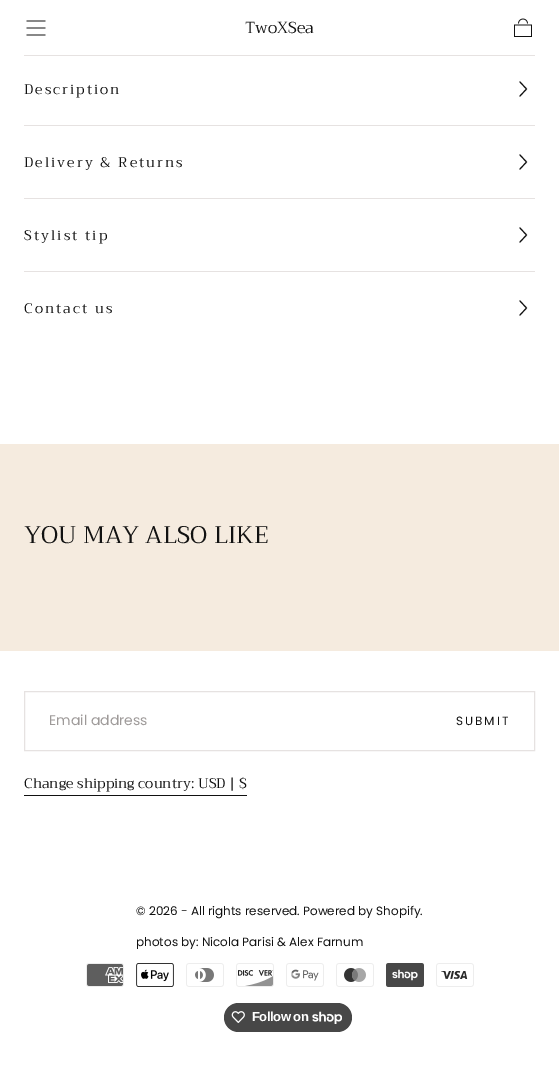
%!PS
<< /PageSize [559 1075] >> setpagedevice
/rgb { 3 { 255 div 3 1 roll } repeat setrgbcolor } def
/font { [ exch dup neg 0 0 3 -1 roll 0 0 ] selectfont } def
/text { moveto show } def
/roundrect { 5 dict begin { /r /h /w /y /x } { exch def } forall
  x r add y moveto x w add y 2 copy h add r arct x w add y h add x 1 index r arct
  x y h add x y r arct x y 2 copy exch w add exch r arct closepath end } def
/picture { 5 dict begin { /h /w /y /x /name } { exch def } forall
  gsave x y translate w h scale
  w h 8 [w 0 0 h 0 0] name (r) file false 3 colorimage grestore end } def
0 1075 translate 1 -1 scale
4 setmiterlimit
255 255 255 rgb
0 0 559 1075 rectfill
(img_01.rgb) 26 20 20 16 picture
(img_02.rgb) 514 18 18 19 picture
230 226 225 rgb
24 55 511 1 rectfill
17 17 17 rgb
2 setlinecap
520 96 moveto 6.5 -7 rlineto -6.5 -7 rlineto stroke
230 226 225 rgb
24 125 511 1 rectfill
17 17 17 rgb
520 169 moveto 6.5 -7 rlineto -6.5 -7 rlineto stroke
230 226 225 rgb
24 198 511 1 rectfill
17 17 17 rgb
520 242 moveto 6.5 -7 rlineto -6.5 -7 rlineto stroke
230 226 225 rgb
24 271 511 1 rectfill
17 17 17 rgb
520 315 moveto 6.5 -7 rlineto -6.5 -7 rlineto stroke
245 235 223 rgb
0 444 559 207 rectfill
230 226 225 rgb
0 setlinecap
24.5 691.5 510 59 rectstroke
17 17 17 rgb
24 795 223 1 rectfill
(img_03.rgb) 86 963 38 24 picture
(img_04.rgb) 136 963 38 24 picture
(img_05.rgb) 186 963 38 24 picture
(img_06.rgb) 236 963 38 24 picture
(img_07.rgb) 286 963 38 24 picture
(img_08.rgb) 336 963 38 24 picture
(img_09.rgb) 386 963 38 24 picture
(img_10.rgb) 436 963 38 24 picture
71 71 71 rgb
224 1003 128 29 14.5 roundrect fill
(img_11.rgb) 231 1011 14 12 picture
(img_12.rgb) 312 1011 30 13 picture
/Trirong-Regular 16 font
17 17 17 rgb
(TwoXSea) 245 33 text
/Trirong-Regular 14 font
24 94 moveto 2 0 (Description) ashow
24 167 moveto 2 0 (Delivery & Returns) ashow
24 240 moveto 2 0 (Stylist tip) ashow
24 313 moveto 2 0 (Contact us) ashow
/Trirong-Regular 24 font
(YOU MAY ALSO LIKE) 24 543 text
/Poppins-Regular 14 font
158 154 153 rgb
(Email address) 49 725 text
/Poppins-Regular 12 font
17 17 17 rgb
456 725 moveto 2 0 (SUBMIT) ashow
/Trirong-Regular 14 font
(Change shipping country: USD | $) 24 788 text
/Poppins-Regular 12 font
(© 2026 - All rights reserved. Powered by Shopify.) 136 915 text
(photos by: Nicola Parisi & Alex Farnum) 136 946 text
/LiberationSans-Bold 13 font
255 255 255 rgb
252 1021 moveto -0.5 0 (Follow on) ashow
showpage
